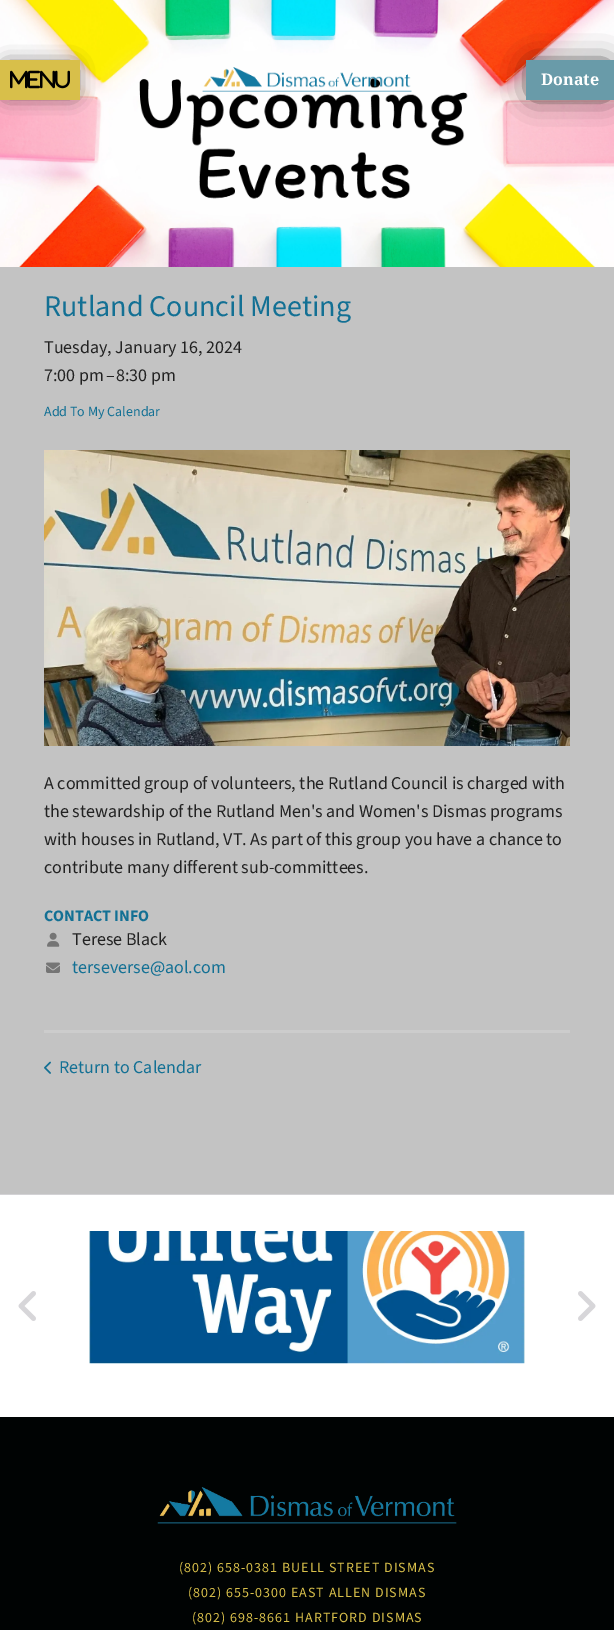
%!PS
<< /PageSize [614 1630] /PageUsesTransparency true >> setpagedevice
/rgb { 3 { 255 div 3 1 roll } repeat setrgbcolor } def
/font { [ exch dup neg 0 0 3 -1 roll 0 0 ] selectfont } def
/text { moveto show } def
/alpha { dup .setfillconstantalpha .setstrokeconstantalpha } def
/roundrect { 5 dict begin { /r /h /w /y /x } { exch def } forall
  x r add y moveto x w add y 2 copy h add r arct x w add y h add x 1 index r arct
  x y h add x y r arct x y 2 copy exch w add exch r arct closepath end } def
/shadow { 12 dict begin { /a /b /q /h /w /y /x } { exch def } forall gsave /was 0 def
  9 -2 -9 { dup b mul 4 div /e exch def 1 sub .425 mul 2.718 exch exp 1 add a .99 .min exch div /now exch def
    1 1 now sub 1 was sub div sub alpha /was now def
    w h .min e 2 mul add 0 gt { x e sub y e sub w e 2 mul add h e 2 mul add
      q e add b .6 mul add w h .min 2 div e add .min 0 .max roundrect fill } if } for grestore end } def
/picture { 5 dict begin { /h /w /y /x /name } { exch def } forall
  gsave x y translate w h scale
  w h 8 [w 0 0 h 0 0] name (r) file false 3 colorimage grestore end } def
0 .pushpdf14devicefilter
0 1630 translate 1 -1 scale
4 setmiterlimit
255 255 255 rgb
0 0 614 1630 rectfill
(img_01.rgb) 0 0 614 267 picture
0 0 0 rgb
7 67 66 26 0 10 1 shadow
216 191 74 rgb
0 60 80 40 rectfill
(img_02.rgb) 10 70 60 19 picture
(img_03.rgb) 202 67 210 25 picture
0 0 0 rgb
533 67 74 26 0 15 1 shadow
105 155 169 rgb
526 60 88 40 rectfill
195 195 195 rgb
0 267 614 927 rectfill
204 204 204 rgb
44 1030 526 3 rectfill
(img_04.rgb) 44 450 526 296 picture
(img_05.rgb) 47 932 13 15 picture
(img_06.rgb) 46 962 14 11 picture
(img_07.rgb) 44 1061 7 13 picture
211 210 213 rgb
0 1194 614 1 rectfill
(img_08.rgb) 89 1231 436 133 picture
(img_09.rgb) 18 1291 18 30 picture
(img_10.rgb) 578 1291 18 30 picture
0 3 3 rgb
0 1417 614 213 rectfill
(img_11.rgb) 157 1487 300 37 picture
/NotoSerif-Bold 16 font
255 255 255 rgb
(Donate) 541 85 text
/SourceSans3-Regular 30 font
19 112 148 rgb
(Rutland Council Meeting) 44 316 text
/SourceSans3-Regular 18 font
34 34 34 rgb
(Tuesday, January 16, 2024) 44 353 text
(7:00 pm) 44 381 text
(–) 106 381 text
(8:30 pm) 116 381 text
/SourceSans3-Regular 14 font
19 112 148 rgb
(Add To My Calendar) 44 416 text
/SourceSans3-Regular 18 font
34 34 34 rgb
(A committed group of volunteers, the Rutland Council is charged with) 44 789 text
(the stewardship of the Rutland Men's and Women's Dismas programs) 44 817 text
(with houses in Rutland, VT. As part of this group you have a chance to) 44 845 text
(contribute many different sub-committees.) 44 873 text
/SourceSans3-Bold 16 font
19 112 148 rgb
(CONTACT INFO) 44 921 text
/SourceSans3-Regular 18 font
34 34 34 rgb
(Terese Black) 72 945 text
19 112 148 rgb
(terseverse@aol.com) 72 973 text
(Return to Calendar) 59 1073 text
/SourceSans3-Regular 14 font
216 191 74 rgb
179 1572 moveto 1 0 (\(802\) 658-0381 BUELL STREET DISMAS) ashow
188 1597 moveto 1 0 (\(802\) 655-0300 EAST ALLEN DISMAS) ashow
192 1622 moveto 1 0 (\(802\) 698-8661 HARTFORD DISMAS) ashow
.poppdf14devicefilter showpage
